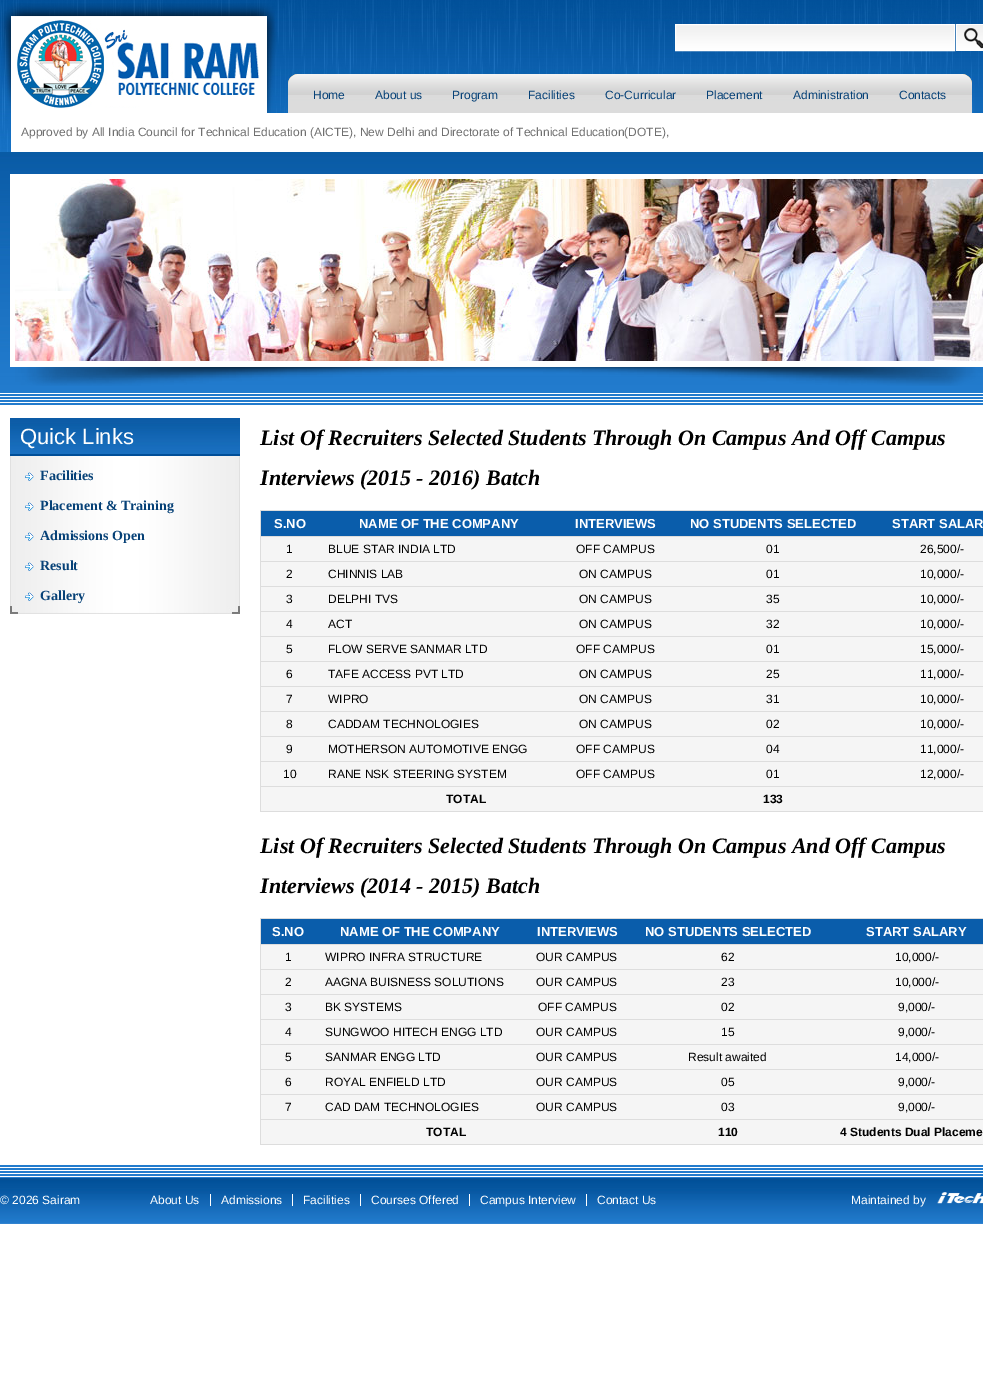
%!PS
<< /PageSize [983 1379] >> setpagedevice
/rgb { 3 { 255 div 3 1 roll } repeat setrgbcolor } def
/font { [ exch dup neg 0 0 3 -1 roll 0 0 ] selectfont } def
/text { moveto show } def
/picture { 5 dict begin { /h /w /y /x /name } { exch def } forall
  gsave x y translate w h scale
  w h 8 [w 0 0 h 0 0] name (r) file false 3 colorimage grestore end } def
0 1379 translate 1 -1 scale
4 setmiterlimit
255 255 255 rgb
0 0 983 1379 rectfill
(img_01.rgb) 0 0 983 405 picture
(img_02.rgb) 0 3 277 110 picture
(img_03.rgb) 676 25 278 25 picture
675.5 24.5 279 26 rectstroke
(img_04.rgb) 956 24 27 27 picture
(img_05.rgb) 288 74 10 39 picture
(img_06.rgb) 298 74 664 39 picture
(img_07.rgb) 962 74 10 39 picture
11 113 972 39 rectfill
(img_08.rgb) 10 174 973 212 picture
(img_09.rgb) 15 179 968 182 picture
(img_10.rgb) 10 418 230 38 picture
(img_11.rgb) 10 456 230 150 picture
(img_12.rgb) 25 472 9 9 picture
(img_12.rgb) 25 502 9 9 picture
(img_12.rgb) 25 532 9 9 picture
(img_12.rgb) 25 562 9 9 picture
(img_12.rgb) 25 592 9 9 picture
(img_13.rgb) 10 606 230 8 picture
245 245 245 rgb
261 537 722 274 rectfill
221 221 221 rgb
260 510 723 1 rectfill
260 811 723 1 rectfill
260 510 1 302 rectfill
10 93 171 rgb
261 511 722 25 rectfill
221 221 221 rgb
260 536 723 1 rectfill
260 561 723 1 rectfill
260 586 723 1 rectfill
260 611 723 1 rectfill
260 636 723 1 rectfill
260 661 723 1 rectfill
260 686 723 1 rectfill
260 711 723 1 rectfill
260 736 723 1 rectfill
260 761 723 1 rectfill
260 786 723 1 rectfill
245 245 245 rgb
261 945 722 199 rectfill
221 221 221 rgb
260 918 723 1 rectfill
260 1144 723 1 rectfill
260 918 1 227 rectfill
10 93 171 rgb
261 919 722 25 rectfill
221 221 221 rgb
260 944 723 1 rectfill
260 969 723 1 rectfill
260 994 723 1 rectfill
260 1019 723 1 rectfill
260 1044 723 1 rectfill
260 1069 723 1 rectfill
260 1094 723 1 rectfill
260 1119 723 1 rectfill
(img_14.rgb) 0 1165 983 59 picture
255 255 255 rgb
210 1194 1 12 rectfill
292 1194 1 12 rectfill
360 1194 1 12 rectfill
469 1194 1 12 rectfill
586 1194 1 12 rectfill
(img_15.rgb) 937 1192 46 12 picture
/LiberationSans-Regular 12 font
6 65 119 rgb
(Home) 313 99 text
(About us) 375 99 text
(Program) 452 99 text
(Facilities) 528 99 text
(Co-Curricular) 605 99 text
(Placement) 706 99 text
(Administration) 793 99 text
(Contacts) 899 99 text
112 112 112 rgb
(Approved by All India Council for Technical Education \(AICTE\), New Delhi and Directorate of Technical Education\(DOTE\),) 21 136 text
/LiberationSans-Regular 22 font
255 255 255 rgb
(Quick Links) 20 444 text
/LiberationSerif-Bold 14 font
6 65 119 rgb
(Facilities) 40 480 text
(Placement & Training) 40 510 text
(Admissions Open) 40 540 text
(Result) 40 570 text
(Gallery) 40 600 text
/LiberationSerif-BoldItalic 22 font
0 0 0 rgb
(List Of Recruiters Selected Students Through On Campus And Off Campus) 260 445 text
(Interviews \(2015 - 2016\) Batch) 260 485 text
/LiberationSans-Bold 13 font
255 255 255 rgb
(S.NO) 274 528 text
(NAME OF THE COMPANY) 359 528 text
(INTERVIEWS) 575 528 text
(NO STUDENTS SELECTED) 690 528 text
(START SALAR) 892 528 text
/LiberationSans-Regular 12 font
0 0 0 rgb
(1) 286 553 text
(BLUE STAR INDIA LTD) 328 553 text
(OFF CAMPUS) 576 553 text
(01) 766 553 text
(26,500/-) 920 553 text
(2) 286 578 text
(CHINNIS LAB) 328 578 text
(ON CAMPUS) 579 578 text
(01) 766 578 text
(10,000/-) 920 578 text
(3) 286 603 text
(DELPHI TVS) 328 603 text
(ON CAMPUS) 579 603 text
(35) 766 603 text
(10,000/-) 920 603 text
(4) 286 628 text
(ACT) 328 628 text
(ON CAMPUS) 579 628 text
(32) 766 628 text
(10,000/-) 920 628 text
(5) 286 653 text
(FLOW SERVE SANMAR LTD) 328 653 text
(OFF CAMPUS) 576 653 text
(01) 766 653 text
(15,000/-) 920 653 text
(6) 286 678 text
(TAFE ACCESS PVT LTD) 328 678 text
(ON CAMPUS) 579 678 text
(25) 766 678 text
(11,000/-) 920 678 text
(7) 286 703 text
(WIPRO) 328 703 text
(ON CAMPUS) 579 703 text
(31) 766 703 text
(10,000/-) 920 703 text
(8) 286 728 text
(CADDAM TECHNOLOGIES) 328 728 text
(ON CAMPUS) 579 728 text
(02) 766 728 text
(10,000/-) 920 728 text
(9) 286 753 text
(MOTHERSON AUTOMOTIVE ENGG) 328 753 text
(OFF CAMPUS) 576 753 text
(04) 766 753 text
(11,000/-) 920 753 text
(10) 283 778 text
(RANE NSK STEERING SYSTEM) 328 778 text
(OFF CAMPUS) 576 778 text
(01) 766 778 text
(12,000/-) 920 778 text
/LiberationSans-Bold 12 font
(TOTAL) 446 803 text
(133) 763 803 text
/LiberationSerif-BoldItalic 22 font
(List Of Recruiters Selected Students Through On Campus And Off Campus) 260 853 text
(Interviews \(2014 - 2015\) Batch) 260 893 text
/LiberationSans-Bold 13 font
255 255 255 rgb
(S.NO) 272 936 text
(NAME OF THE COMPANY) 340 936 text
(INTERVIEWS) 537 936 text
(NO STUDENTS SELECTED) 645 936 text
(START SALARY) 866 936 text
/LiberationSans-Regular 12 font
0 0 0 rgb
(1) 285 961 text
(WIPRO INFRA STRUCTURE) 325 961 text
(OUR CAMPUS) 536 961 text
(62) 721 961 text
(10,000/-) 895 961 text
(2) 285 986 text
(AAGNA BUISNESS SOLUTIONS) 325 986 text
(OUR CAMPUS) 536 986 text
(23) 721 986 text
(10,000/-) 895 986 text
(3) 285 1011 text
(BK SYSTEMS) 325 1011 text
(OFF CAMPUS) 538 1011 text
(02) 721 1011 text
(9,000/-) 898 1011 text
(4) 285 1036 text
(SUNGWOO HITECH ENGG LTD) 325 1036 text
(OUR CAMPUS) 536 1036 text
(15) 721 1036 text
(9,000/-) 898 1036 text
(5) 285 1061 text
(SANMAR ENGG LTD) 325 1061 text
(OUR CAMPUS) 536 1061 text
(Result awaited) 688 1061 text
(14,000/-) 895 1061 text
(6) 285 1086 text
(ROYAL ENFIELD LTD) 325 1086 text
(OUR CAMPUS) 536 1086 text
(05) 721 1086 text
(9,000/-) 898 1086 text
(7) 285 1111 text
(CAD DAM TECHNOLOGIES) 325 1111 text
(OUR CAMPUS) 536 1111 text
(03) 721 1111 text
(9,000/-) 898 1111 text
/LiberationSans-Bold 12 font
(TOTAL) 426 1136 text
(110) 718 1136 text
(4 Students Dual Placeme) 840 1136 text
/LiberationSans-Regular 12 font
255 255 255 rgb
(© 2026 Sairam) 0 1204 text
(About Us) 150 1204 text
(Admissions) 221 1204 text
(Facilities) 303 1204 text
(Courses Offered) 371 1204 text
(Campus Interview) 480 1204 text
(Contact Us) 597 1204 text
(Maintained by) 851 1204 text
showpage
